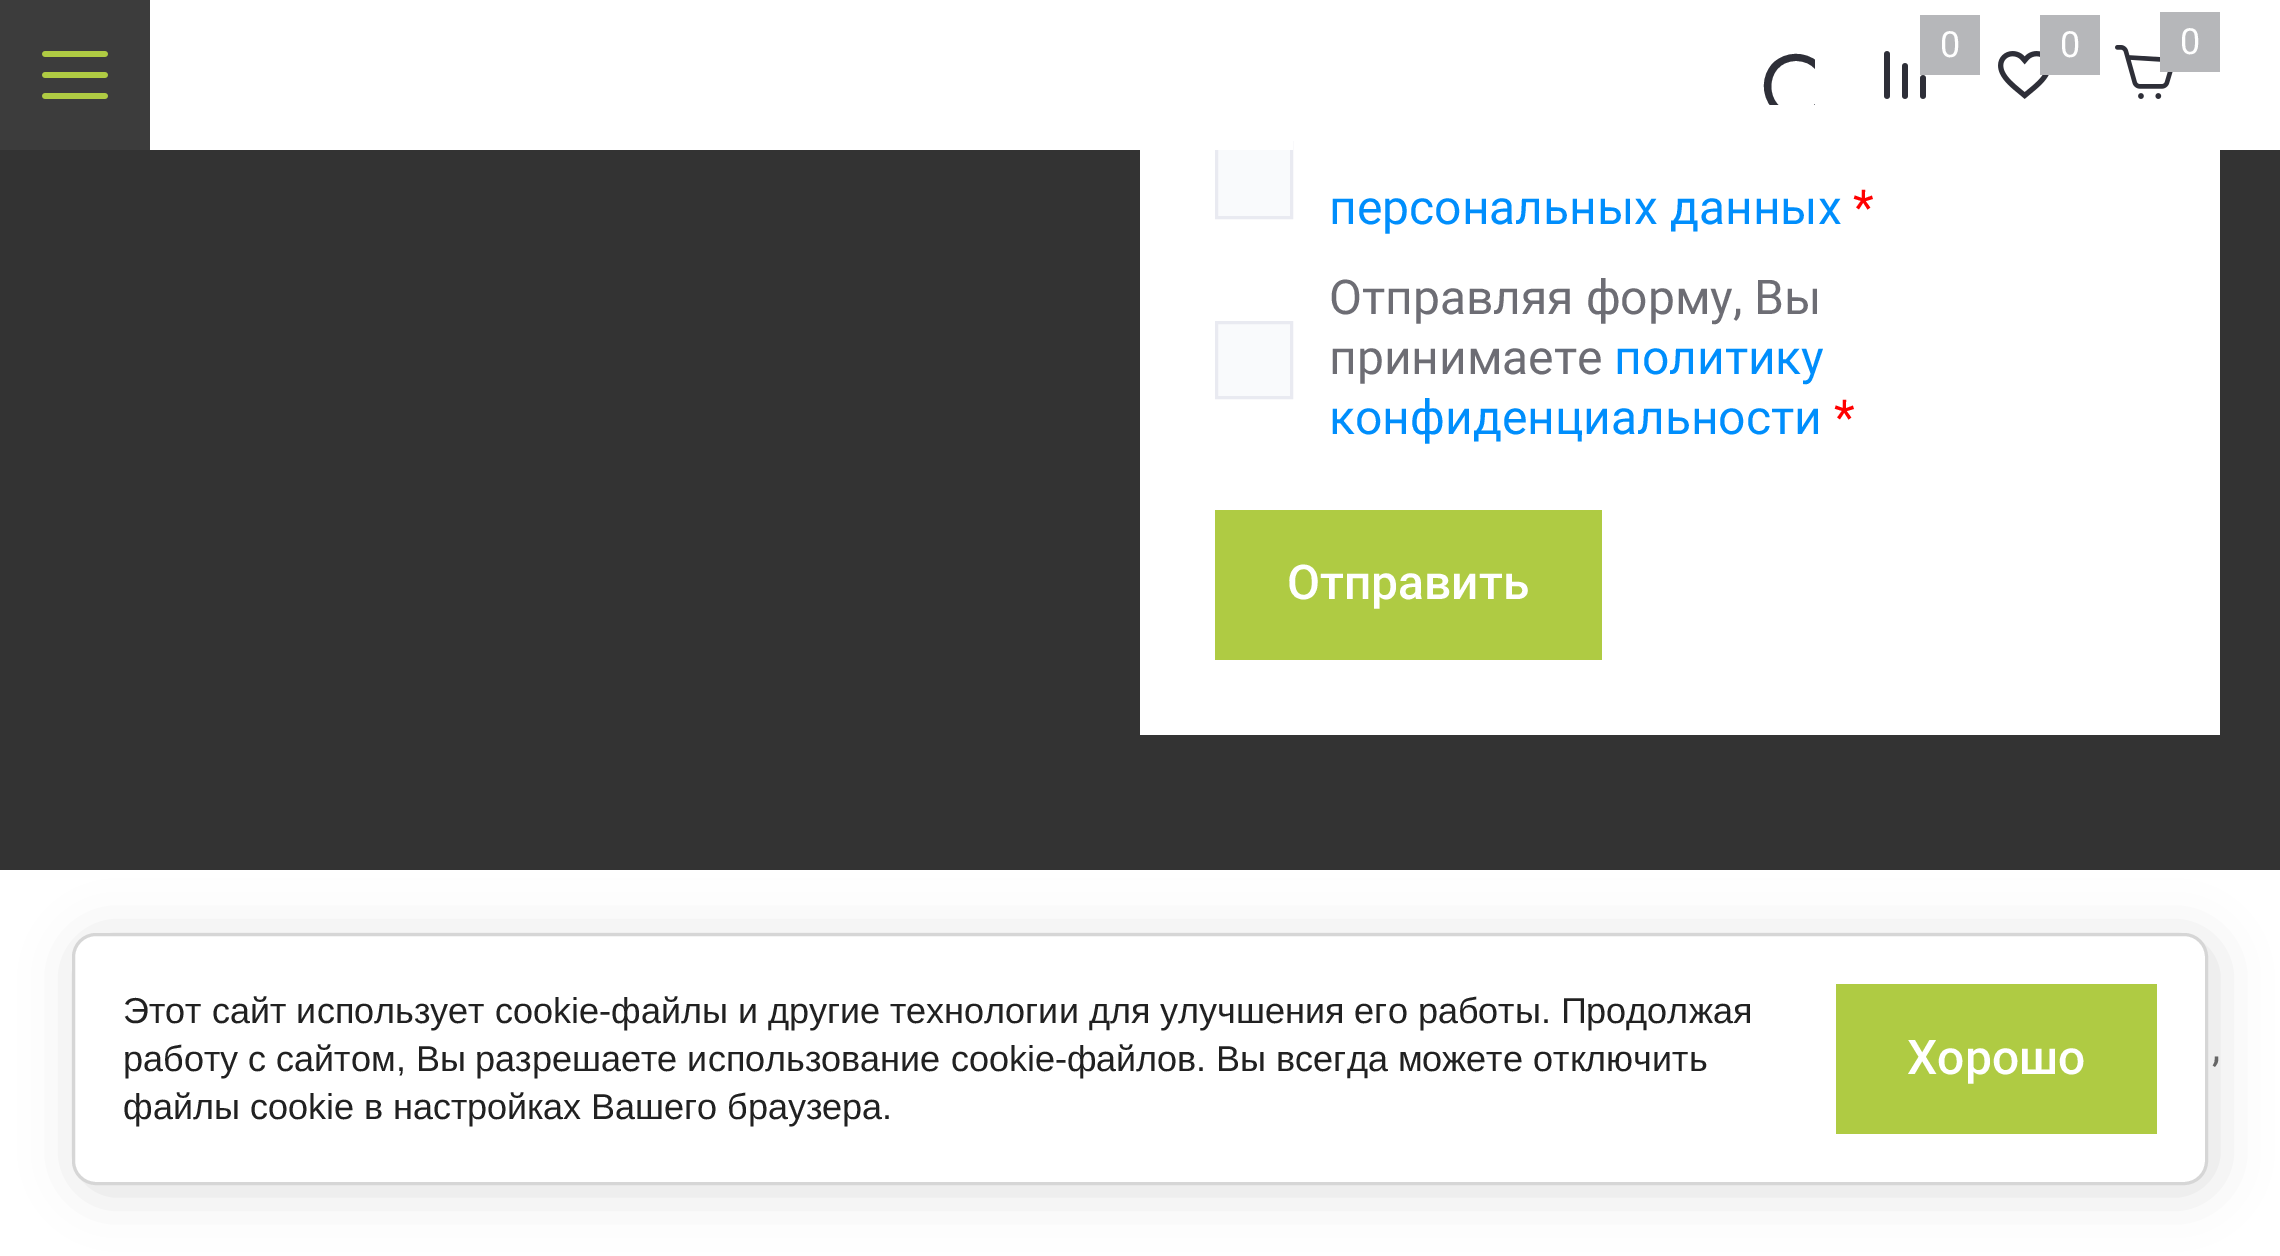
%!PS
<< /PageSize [2280 1256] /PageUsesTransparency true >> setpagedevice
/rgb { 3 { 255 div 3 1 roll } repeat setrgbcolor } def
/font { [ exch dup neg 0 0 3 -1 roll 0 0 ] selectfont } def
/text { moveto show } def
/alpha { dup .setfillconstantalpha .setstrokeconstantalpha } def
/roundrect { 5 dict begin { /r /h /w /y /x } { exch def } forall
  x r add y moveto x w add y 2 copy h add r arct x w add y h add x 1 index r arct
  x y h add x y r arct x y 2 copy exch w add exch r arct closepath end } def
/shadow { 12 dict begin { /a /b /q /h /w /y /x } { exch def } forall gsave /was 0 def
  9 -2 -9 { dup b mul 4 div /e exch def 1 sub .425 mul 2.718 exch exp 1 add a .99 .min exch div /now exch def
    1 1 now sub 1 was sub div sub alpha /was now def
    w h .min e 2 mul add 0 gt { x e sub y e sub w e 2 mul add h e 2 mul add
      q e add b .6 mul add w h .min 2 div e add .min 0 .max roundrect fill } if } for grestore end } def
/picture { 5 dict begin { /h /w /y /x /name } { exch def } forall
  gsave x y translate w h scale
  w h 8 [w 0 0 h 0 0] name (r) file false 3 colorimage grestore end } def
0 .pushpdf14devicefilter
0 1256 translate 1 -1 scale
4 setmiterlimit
255 255 255 rgb
0 0 2280 1256 rectfill
51 51 51 rgb
0 150 2280 720 rectfill
255 255 255 rgb
1140 150 1080 585 rectfill
249 250 252 rgb
1218 150 72 66 rectfill
233 234 241 rgb
3 setlinewidth
1216.5 142.5 75 75 rectstroke
255 255 255 rgb
1215 141 78 9 rectfill
60 60 60 rgb
0 0 150 150 rectfill
(img_01.rgb) 42 51 66 48 picture
(img_02.rgb) 1884 51 42 48 picture
182 183 186 rgb
1920 15 60 60 rectfill
(img_03.rgb) 1998 51 51 48 picture
2040 15 60 60 rectfill
(img_04.rgb) 2115 45 58 54 picture
2160 12 60 60 rectfill
gsave
1755 45 60 60 rectclip
46 47 56 rgb
1835 120 moveto -13 -13 rlineto 10 -14 9 -33 -4 -45 rcurveto -13 -11 -32 -11 -45 1 rcurveto -12 13 -12 32 -1 45 rcurveto 12 13 31 14 45 4 rcurveto 6 6 rlineto 2 2 9 12 12 6 rcurveto 1 -1 1 -3 0 -4 rcurveto closepath 1796 112 moveto -33 0 -33 -51 0 -51 rcurveto 34 0 34 51 0 51 rcurveto closepath fill
grestore
249 250 252 rgb
1216.5 322.5 moveto 75 0 rlineto 0 75 rlineto -75 0 rlineto closepath gsave fill grestore
233 234 241 rgb
stroke
175 203 67 rgb
1215 510 387 150 rectfill
0 0 0 rgb
78 939 2136 252 24 27 0.14 shadow
255 255 255 rgb
73.5 934.5 2133 249 22.5 roundrect gsave fill grestore
214 214 214 rgb
stroke
175 203 67 rgb
1836 984 321 150 rectfill
/Roboto-Regular 36 font
255 255 255 rgb
(0) 1940 57 text
(0) 2060 57 text
(0) 2180 54 text
/Roboto-Regular 48 font
0 142 252 rgb
(персональных данных) 1329 224 text
255 0 0 rgb
(*) 1853 224 text
109 109 116 rgb
(Отправляя форму, Вы) 1329 314 text
(принимаете) 1329 374 text
0 142 252 rgb
(политику) 1614 374 text
(конфиденциальности) 1329 434 text
255 0 0 rgb
(*) 1834 434 text
/Roboto-Medium 48 font
255 255 255 rgb
(Отправить) 1287 599 text
/Roboto-Regular 42 font
102 102 102 rgb
(,) 2212 1061 text
/LiberationSans-Regular 36 font
33 33 33 rgb
(Этот сайт использует cookie-файлы и другие технологии для улучшения его работы. Продолжая) 123 1023 text
(работу с сайтом, Вы разрешаете использование cookie-файлов. Вы всегда можете отключить) 123 1071 text
(файлы cookie в настройках Вашего браузера.) 123 1119 text
/Roboto-Medium 48 font
255 255 255 rgb
(Хорошо) 1907 1074 text
.poppdf14devicefilter showpage
